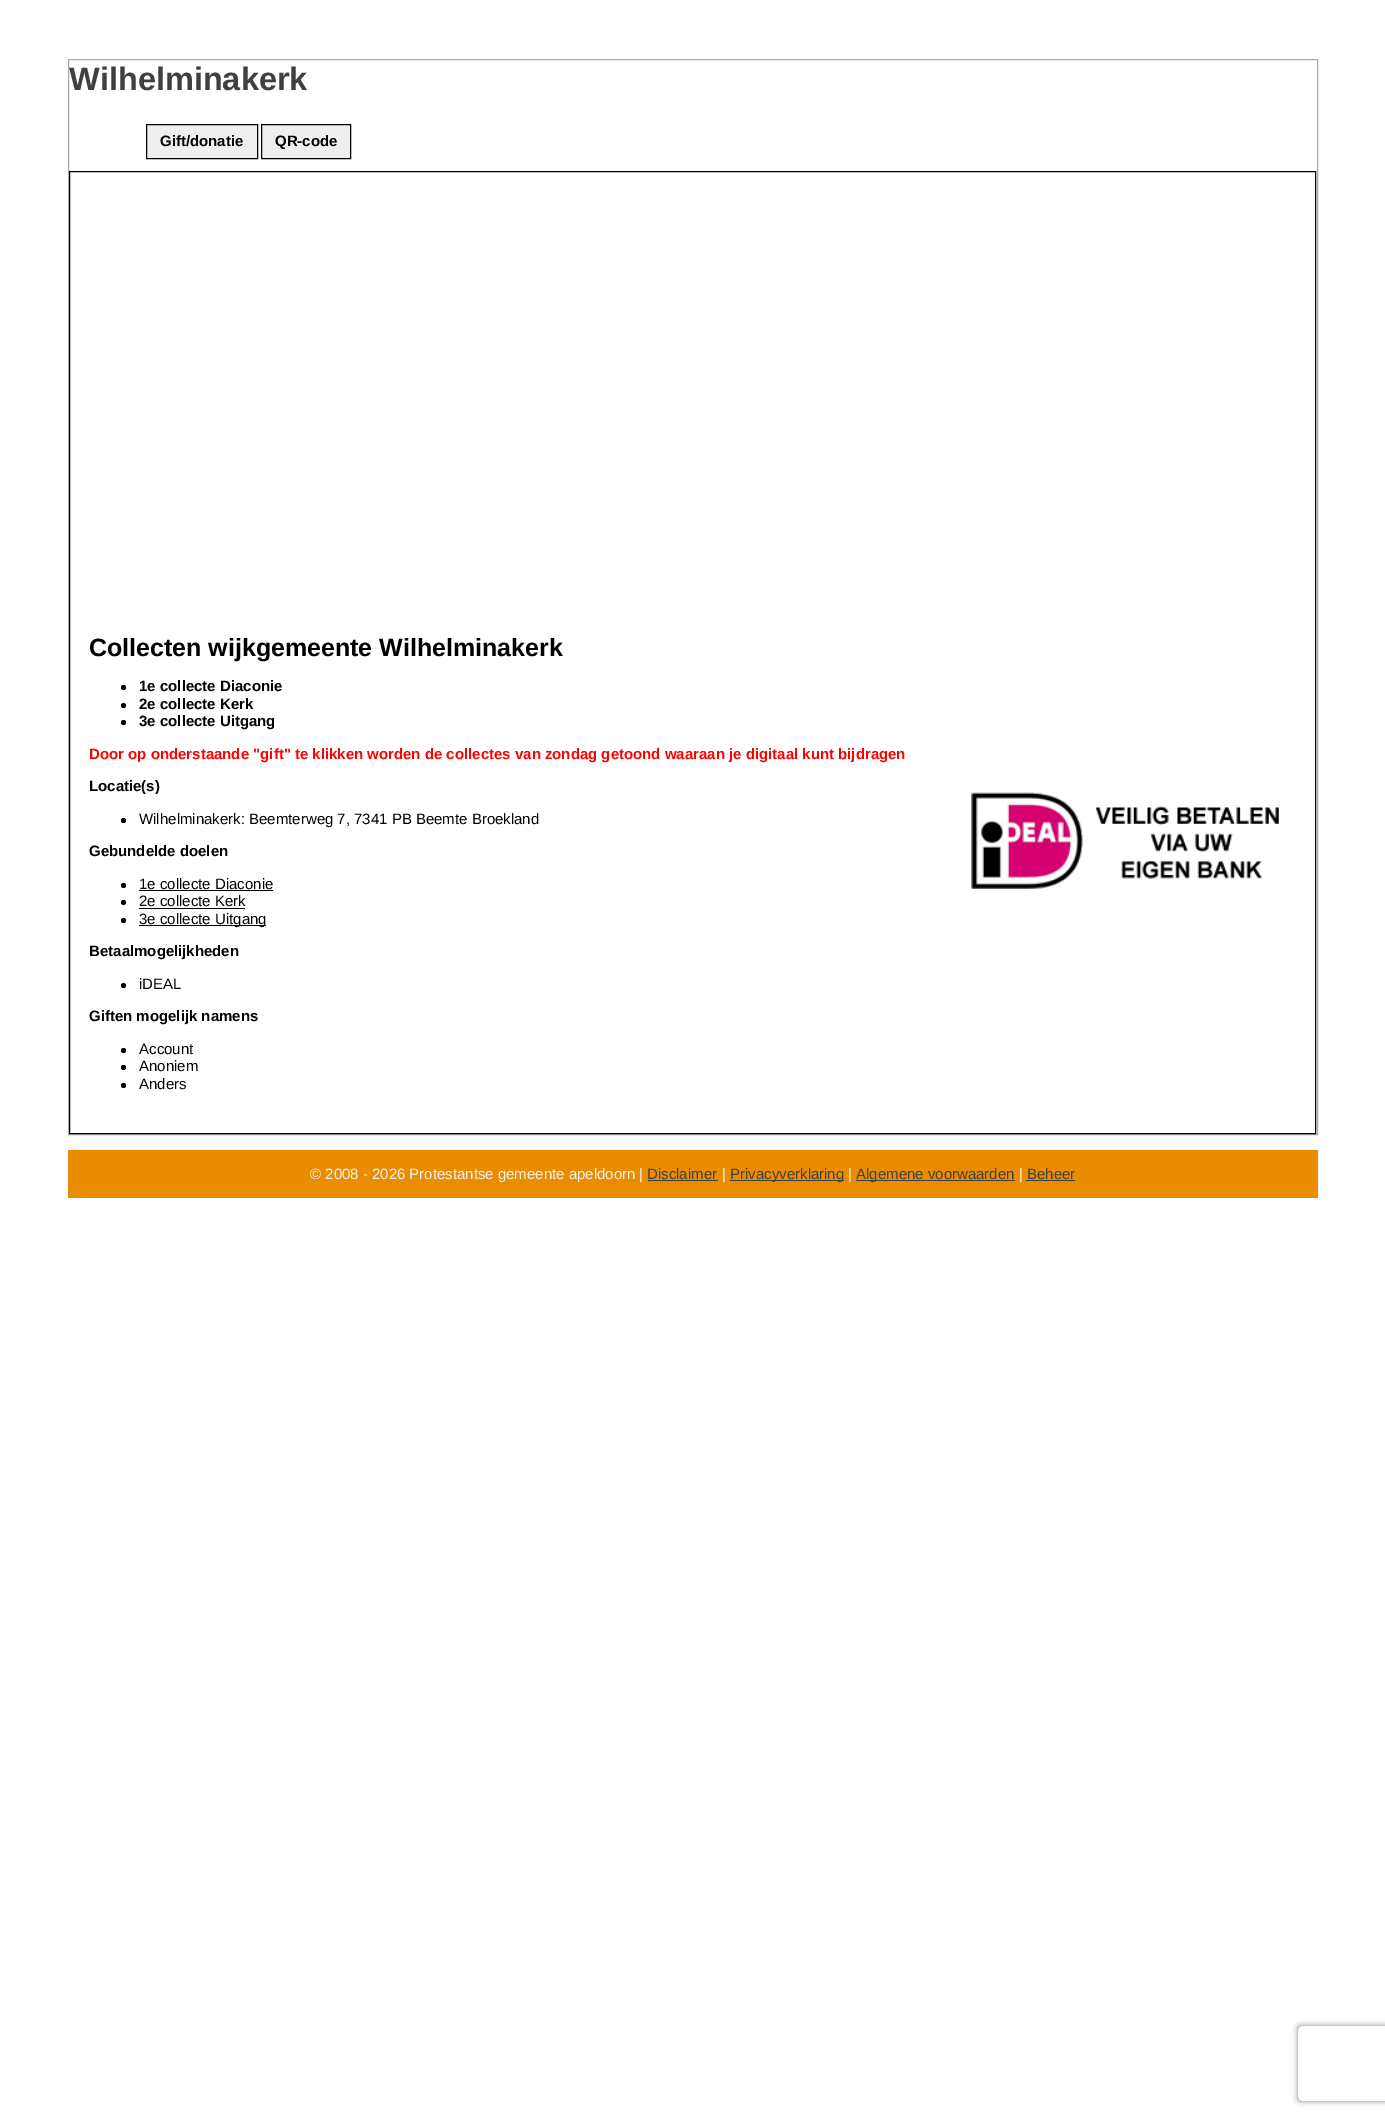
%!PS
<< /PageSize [1385 2118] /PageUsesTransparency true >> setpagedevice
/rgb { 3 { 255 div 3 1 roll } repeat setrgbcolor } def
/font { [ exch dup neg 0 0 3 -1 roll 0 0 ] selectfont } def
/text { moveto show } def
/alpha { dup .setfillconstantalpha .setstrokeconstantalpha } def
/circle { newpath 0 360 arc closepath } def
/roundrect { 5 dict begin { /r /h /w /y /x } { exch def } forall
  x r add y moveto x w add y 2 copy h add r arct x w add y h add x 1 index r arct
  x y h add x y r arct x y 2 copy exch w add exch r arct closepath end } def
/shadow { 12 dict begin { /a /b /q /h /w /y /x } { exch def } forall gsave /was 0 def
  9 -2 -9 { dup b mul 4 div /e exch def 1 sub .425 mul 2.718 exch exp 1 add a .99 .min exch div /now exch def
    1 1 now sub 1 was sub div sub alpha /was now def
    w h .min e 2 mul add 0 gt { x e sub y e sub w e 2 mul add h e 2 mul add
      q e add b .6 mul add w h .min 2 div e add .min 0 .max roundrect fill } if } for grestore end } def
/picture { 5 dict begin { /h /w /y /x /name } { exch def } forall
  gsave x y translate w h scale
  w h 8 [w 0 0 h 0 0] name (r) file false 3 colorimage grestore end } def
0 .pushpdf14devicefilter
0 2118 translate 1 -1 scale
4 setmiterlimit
255 255 255 rgb
0 0 1385 2118 rectfill
170 170 170 rgb
68.5 59.5 1249 1075 rectstroke
239 239 239 rgb
146.5 124.5 moveto 111 0 rlineto 0 34 rlineto -111 0 rlineto closepath gsave fill grestore
0 0 0 rgb
stroke
239 239 239 rgb
261.5 124.5 moveto 89 0 rlineto 0 34 rlineto -89 0 rlineto closepath gsave fill grestore
0 0 0 rgb
stroke
69.5 171.5 1246 962 rectstroke
123.5 687.5 2.5 circle fill
123.5 705.5 2.5 circle fill
123.5 722.5 2.5 circle fill
123.5 820.5 2.5 circle fill
(img_01.rgb) 971 792 308 97 picture
123.5 885.5 2.5 circle fill
139 890 134 1 rectfill
123.5 902.5 2.5 circle fill
139 908 106 1 rectfill
123.5 920.5 2.5 circle fill
139 925 127 1 rectfill
123.5 985.5 2.5 circle fill
123.5 1050.5 2.5 circle fill
123.5 1067.5 2.5 circle fill
123.5 1085.5 2.5 circle fill
233 140 0 rgb
68 1150 1250 48 rectfill
64 64 64 rgb
648 1180 70 1 rectfill
730 1180 114 1 rectfill
856 1180 159 1 rectfill
1026 1180 49 1 rectfill
gsave
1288 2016 moveto 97 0 rlineto 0 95 rlineto -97 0 rlineto closepath 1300.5 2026 moveto 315 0 rlineto 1.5 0 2.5 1 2.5 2.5 rcurveto 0 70 rlineto 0 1.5 -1 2.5 -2.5 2.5 rcurveto -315 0 rlineto -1.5 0 -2.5 -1 -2.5 -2.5 rcurveto 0 -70 rlineto 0 -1.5 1 -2.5 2.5 -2.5 rcurveto closepath eoclip newpath
128 128 128 rgb
1298 2026 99 75 2.5 3 1 shadow
grestore
/LiberationSans-Bold 32.5 font
(Wilhelminakerk) 69 90 text
/LiberationSans-Bold 15 font
0 0 0 rgb
(Gift/donatie) 160 146 text
(QR-code) 275 146 text
/LiberationSans-Bold 25 font
(Collecten wijkgemeente Wilhelminakerk) 89 656 text
/LiberationSans-Bold 15 font
(1e collecte Diaconie) 139 691 text
(2e collecte Kerk) 139 709 text
(3e collecte Uitgang) 139 726 text
255 0 0 rgb
(Door op onderstaande "gift" te klikken worden de collectes van zondag getoond waaraan je digitaal kunt bijdragen) 89 759 text
0 0 0 rgb
(Locatie\(s\)) 89 791 text
/LiberationSans-Regular 15 font
(Wilhelminakerk: Beemterweg 7, 7341 PB Beemte Broekland) 139 824 text
/LiberationSans-Bold 15 font
(Gebundelde doelen) 89 856 text
/LiberationSans-Regular 15 font
(1e collecte Diaconie) 139 889 text
(2e collecte Kerk) 139 906 text
(3e collecte Uitgang) 139 924 text
/LiberationSans-Bold 15 font
(Betaalmogelijkheden) 89 956 text
/LiberationSans-Regular 15 font
(iDEAL) 139 989 text
/LiberationSans-Bold 15 font
(Giften mogelijk namens) 89 1021 text
/LiberationSans-Regular 15 font
(Account) 139 1054 text
(Anoniem) 139 1071 text
(Anders) 139 1089 text
242 242 242 rgb
(© 2008 - 2026 Protestantse gemeente apeldoorn |) 310 1179 text
64 64 64 rgb
(Disclaimer) 647 1179 text
242 242 242 rgb
(|) 722 1179 text
64 64 64 rgb
(Privacyverklaring) 730 1179 text
242 242 242 rgb
(|) 848 1179 text
64 64 64 rgb
(Algemene voorwaarden) 856 1179 text
242 242 242 rgb
(|) 1019 1179 text
64 64 64 rgb
(Beheer) 1027 1179 text
.poppdf14devicefilter showpage
